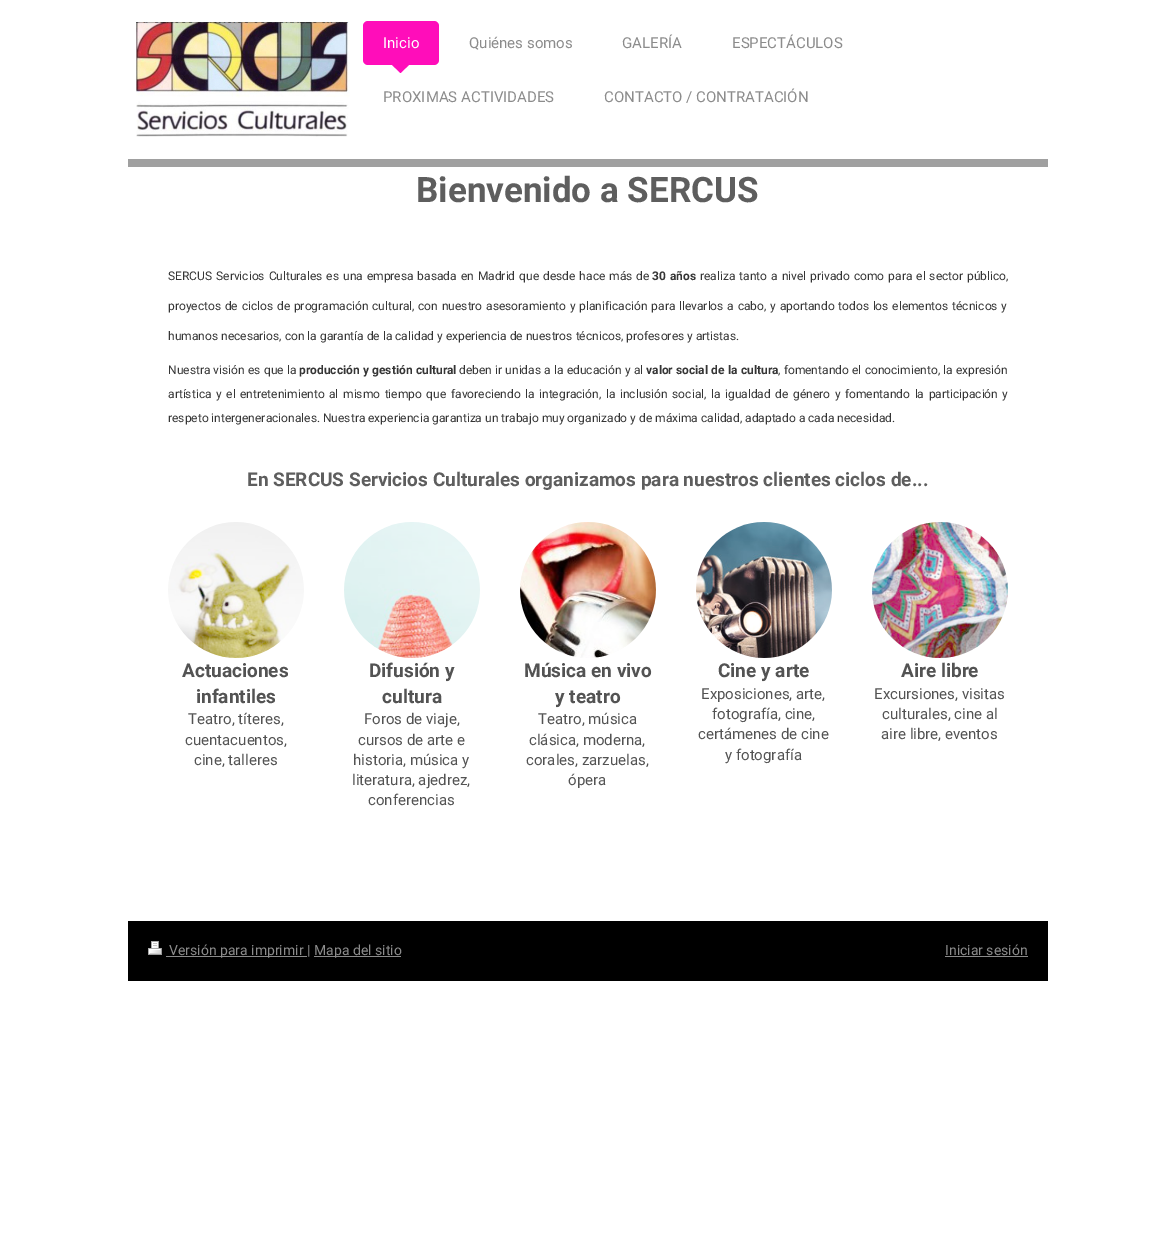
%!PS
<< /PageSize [1175 1233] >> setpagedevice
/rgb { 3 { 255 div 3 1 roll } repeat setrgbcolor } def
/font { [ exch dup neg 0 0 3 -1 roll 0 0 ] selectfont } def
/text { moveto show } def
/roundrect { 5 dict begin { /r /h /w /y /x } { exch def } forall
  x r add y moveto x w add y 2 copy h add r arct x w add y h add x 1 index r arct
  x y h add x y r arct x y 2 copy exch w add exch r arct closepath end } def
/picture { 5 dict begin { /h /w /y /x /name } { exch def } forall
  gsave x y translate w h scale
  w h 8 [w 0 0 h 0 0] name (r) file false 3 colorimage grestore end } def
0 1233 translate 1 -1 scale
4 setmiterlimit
255 255 255 rgb
0 0 1175 1233 rectfill
(img_01.rgb) 136 21 214 116 picture
255 13 186 rgb
363 21 76 44 5 roundrect fill
390.5 63.5 moveto 20 0 rlineto -10 9.5 rlineto closepath fill
160 160 160 rgb
128 159 920 8 rectfill
(img_02.rgb) 168 522 136 136 picture
(img_03.rgb) 344 522 136 136 picture
(img_04.rgb) 520 522 136 136 picture
(img_05.rgb) 696 522 136 136 picture
(img_06.rgb) 872 522 136 136 picture
0 0 0 rgb
128 921 920 60 rectfill
(img_07.rgb) 148 941 14 14 picture
138 138 138 rgb
166 956 141 1 rectfill
314 956 87 1 rectfill
945 956 83 1 rectfill
/Roboto-Regular 15 font
255 255 255 rgb
(Inicio) 383 48 text
140 140 140 rgb
(Quiénes somos) 469 48 text
(GALERÍA) 622 48 text
(ESPECTÁCULOS) 732 48 text
(PROXIMAS ACTIVIDADES) 383 102 text
(CONTACTO / CONTRATACIÓN) 604 102 text
/Roboto-Bold 35 font
94 94 94 rgb
(Bienvenido a SERCUS) 416 202 text
/Roboto-Regular 12 font
53 53 53 rgb
168 280 moveto 1 0 32 (SERCUS Servicios Culturales es una empresa basada en Madrid que desde hace más de) widthshow
/Roboto-Bold 12 font
652 280 moveto 1 0 32 (30 años) widthshow
/Roboto-Regular 12 font
700 280 moveto 1 0 32 (realiza tanto a nivel privado como para el sector público,) widthshow
168 310 moveto 0.8 0 32 (proyectos de ciclos de programación cultural, con nuestro asesoramiento y planificación para llevarlos a cabo, y aportando todos los elementos técnicos y) widthshow
(humanos necesarios, con la garantía de la calidad y experiencia de nuestros técnicos, profesores y artistas.) 168 340 text
168 374 moveto 0.25 0 32 (Nuestra visión es que la) widthshow
/Roboto-Bold 12 font
299 374 moveto 0.25 0 32 (producción y gestión cultural) widthshow
/Roboto-Regular 12 font
459 374 moveto 0.25 0 32 (deben ir unidas a la educación y al) widthshow
/Roboto-Bold 12 font
646 374 moveto 0.25 0 32 (valor social de la cultura) widthshow
/Roboto-Regular 12 font
778 374 moveto 0.25 0 32 (, fomentando el conocimiento, la expresión) widthshow
168 398 moveto 1.6 0 32 (artística y el entretenimiento al mismo tiempo que favoreciendo la integración, la inclusión social, la igualdad de género y fomentando la participación y) widthshow
(respeto intergeneracionales. Nuestra experiencia garantiza un trabajo muy organizado y de máxima calidad, adaptado a cada necesidad.) 168 422 text
/Roboto-Bold 19 font
94 94 94 rgb
(En SERCUS Servicios Culturales organizamos para nuestros clientes ciclos de...) 247 486 text
83 83 83 rgb
(Actuaciones) 182 677 text
(infantiles) 196 703 text
/Roboto-Regular 15 font
(Teatro, títeres,) 188 724 text
(cuentacuentos,) 185 745 text
(cine, talleres) 194 765 text
/Roboto-Bold 19 font
(Difusión y) 369 677 text
(cultura) 382 703 text
/Roboto-Regular 15 font
(Foros de viaje,) 364 724 text
(cursos de arte e) 358 745 text
(historia, música y) 353 765 text
(literatura, ajedrez,) 352 785 text
(conferencias) 368 805 text
/Roboto-Bold 19 font
(Música en vivo) 524 677 text
(y teatro) 555 703 text
/Roboto-Regular 15 font
(Teatro, música) 538 724 text
(clásica, moderna,) 529 745 text
(corales, zarzuelas,) 526 765 text
(ópera) 568 785 text
/Roboto-Bold 19 font
(Cine y arte) 718 677 text
/Roboto-Regular 15 font
(Exposiciones, arte,) 701 699 text
(fotografía, cine,) 712 719 text
(certámenes de cine) 698 739 text
(y fotografía) 725 760 text
/Roboto-Bold 19 font
(Aire libre) 901 677 text
/Roboto-Regular 15 font
(Excursiones, visitas) 874 699 text
(culturales, cine al) 882 719 text
(aire libre, eventos) 881 739 text
/Roboto-Regular 14 font
140 140 140 rgb
(Versión para imprimir |) 169 955 text
(Mapa del sitio) 314 955 text
(Iniciar sesión) 945 955 text
showpage
